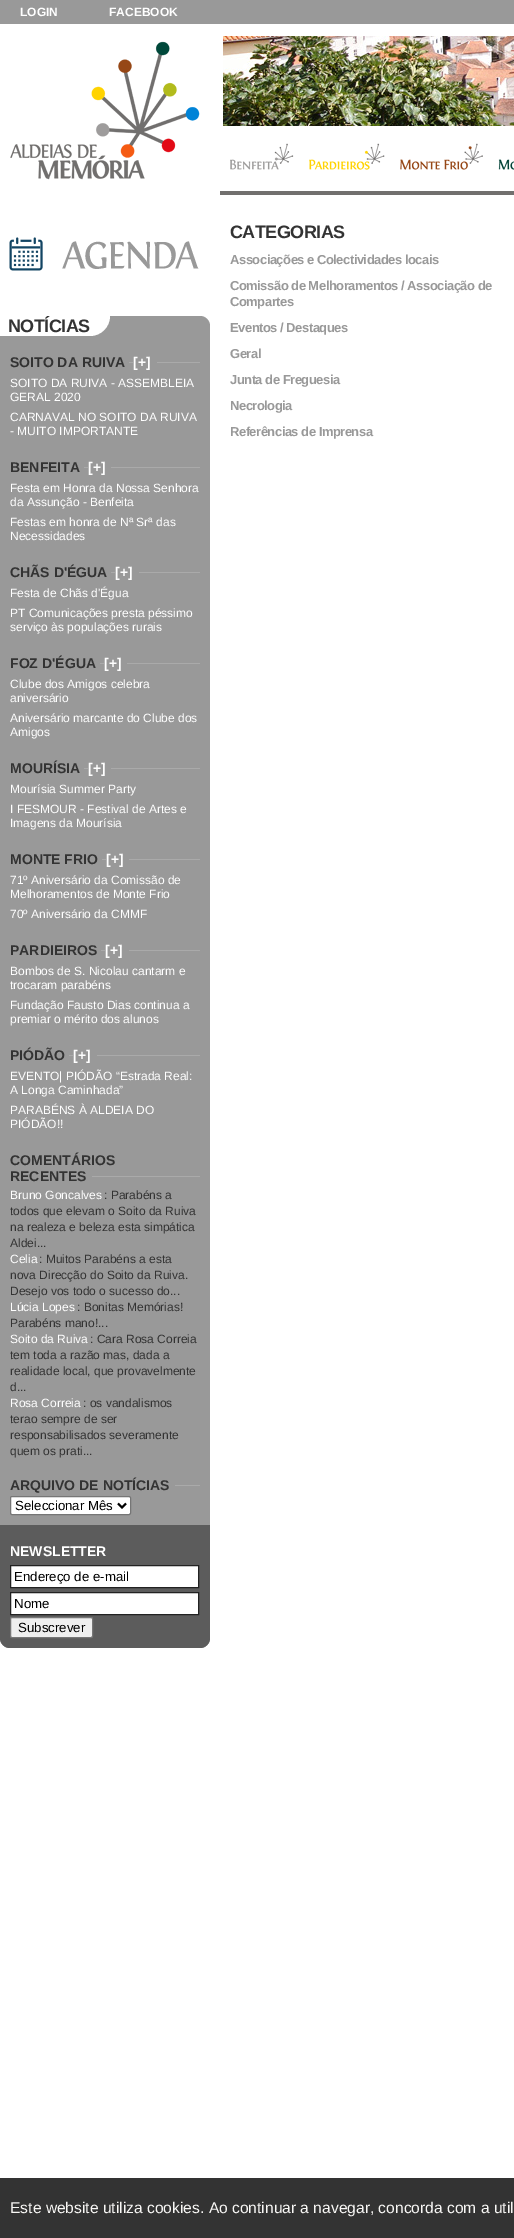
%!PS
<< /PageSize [514 2238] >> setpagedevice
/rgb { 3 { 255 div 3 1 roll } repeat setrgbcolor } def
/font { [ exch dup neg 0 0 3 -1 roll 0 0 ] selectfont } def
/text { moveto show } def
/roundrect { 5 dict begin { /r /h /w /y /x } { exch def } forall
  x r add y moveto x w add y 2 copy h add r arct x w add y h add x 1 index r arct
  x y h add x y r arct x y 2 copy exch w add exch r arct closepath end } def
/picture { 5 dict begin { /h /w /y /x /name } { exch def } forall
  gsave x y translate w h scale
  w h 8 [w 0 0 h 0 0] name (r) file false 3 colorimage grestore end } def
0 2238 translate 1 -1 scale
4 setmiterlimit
255 255 255 rgb
0 0 514 2238 rectfill
113 111 110 rgb
220 191 294 4 rectfill
153 153 153 rgb
0 0 514 24 rectfill
(img_01.rgb) 223 36 291 90 picture
(img_02.rgb) 230 143 64 27 picture
(img_03.rgb) 309 143 76 27 picture
(img_04.rgb) 400 143 83 27 picture
(img_05.rgb) 498 159 16 11 picture
(img_06.rgb) 9 237 190 34 picture
0 316 210 1332 10 roundrect fill
255 255 255 rgb
0 316 moveto 110 0 rlineto 0 11 -9 20 -20 20 rcurveto -90 0 rlineto closepath fill
170 170 170 rgb
129 362 71 1 rectfill
153 153 153 rgb
133 362 24 1 rectfill
170 170 170 rgb
84 467 116 1 rectfill
153 153 153 rgb
88 467 23 1 rectfill
170 170 170 rgb
111 572 89 1 rectfill
153 153 153 rgb
115 572 24 1 rectfill
170 170 170 rgb
100 663 100 1 rectfill
153 153 153 rgb
104 663 23 1 rectfill
170 170 170 rgb
84 768 116 1 rectfill
153 153 153 rgb
88 768 23 1 rectfill
170 170 170 rgb
102 859 98 1 rectfill
153 153 153 rgb
106 859 23 1 rectfill
170 170 170 rgb
101 950 99 1 rectfill
153 153 153 rgb
105 950 24 1 rectfill
170 170 170 rgb
69 1055 131 1 rectfill
153 153 153 rgb
73 1055 24 1 rectfill
170 170 170 rgb
92 1176 108 1 rectfill
175 1485 25 1 rectfill
255 255 255 rgb
10.5 1496.5 120 18 1.5 roundrect gsave fill grestore
118 118 118 rgb
stroke
0 0 0 rgb
2 setlinewidth
118 1503.5 moveto 4 4 rlineto 4 -4 rlineto stroke
92 92 92 rgb
0 1525 moveto 210 0 rlineto 0 113 rlineto 0 5.5 -4.5 10 -10 10 rcurveto -190 0 rlineto -5.5 0 -10 -4.5 -10 -10 rcurveto closepath fill
255 255 255 rgb
10.5 1565.5 moveto 188 0 rlineto 0 22 rlineto -188 0 rlineto closepath gsave fill grestore
34 34 34 rgb
1 setlinewidth
stroke
255 255 255 rgb
10.5 1592.5 moveto 188 0 rlineto 0 22 rlineto -188 0 rlineto closepath gsave fill grestore
34 34 34 rgb
stroke
239 239 239 rgb
10.5 1617.5 82 20 1.5 roundrect gsave fill grestore
118 118 118 rgb
stroke
(img_07.rgb) 10 41 190 139 picture
51 51 51 rgb
0 2178 514 60 rectfill
/LiberationSans-Bold 12 font
255 255 255 rgb
(LOGIN) 20 16 text
(FACEBOOK) 109 16 text
/LiberationSans-Bold 18 font
51 51 51 rgb
8 332 moveto -0.5 0 (NOTÍCIAS) ashow
/LiberationSans-Bold 14 font
(SOITO DA RUIVA) 10 367 text
255 255 255 rgb
([+]) 133 367 text
/LiberationSans-Regular 12 font
(SOITO DA RUIVA - ASSEMBLEIA) 10 387 text
(GERAL 2020) 10 401 text
(CARNAVAL NO SOITO DA RUIVA) 10 421 text
(- MUITO IMPORTANTE) 10 435 text
/LiberationSans-Bold 14 font
51 51 51 rgb
(BENFEITA) 10 472 text
255 255 255 rgb
([+]) 88 472 text
/LiberationSans-Regular 12 font
(Festa em Honra da Nossa Senhora) 10 492 text
(da Assunção - Benfeita) 10 506 text
(Festas em honra de Nª Srª das) 10 526 text
(Necessidades) 10 540 text
/LiberationSans-Bold 14 font
51 51 51 rgb
(CHÃS D'ÉGUA) 10 577 text
255 255 255 rgb
([+]) 115 577 text
/LiberationSans-Regular 12 font
(Festa de Chãs d'Égua) 10 597 text
(PT Comunicações presta péssimo) 10 617 text
(serviço às populações rurais) 10 631 text
/LiberationSans-Bold 14 font
51 51 51 rgb
(FOZ D'ÉGUA) 10 668 text
255 255 255 rgb
([+]) 104 668 text
/LiberationSans-Regular 12 font
(Clube dos Amigos celebra) 10 688 text
(aniversário) 10 702 text
(Aniversário marcante do Clube dos) 10 722 text
(Amigos) 10 736 text
/LiberationSans-Bold 14 font
51 51 51 rgb
(MOURÍSIA) 10 773 text
255 255 255 rgb
([+]) 88 773 text
/LiberationSans-Regular 12 font
(Mourísia Summer Party) 10 793 text
(I FESMOUR - Festival de Artes e) 10 813 text
(Imagens da Mourísia) 10 827 text
/LiberationSans-Bold 14 font
51 51 51 rgb
(MONTE FRIO) 10 864 text
255 255 255 rgb
([+]) 106 864 text
/LiberationSans-Regular 12 font
(71º Aniversário da Comissão de) 10 884 text
(Melhoramentos de Monte Frio) 10 898 text
(70º Aniversário da CMMF) 10 918 text
/LiberationSans-Bold 14 font
51 51 51 rgb
(PARDIEIROS) 10 955 text
255 255 255 rgb
([+]) 105 955 text
/LiberationSans-Regular 12 font
(Bombos de S. Nicolau cantarm e) 10 975 text
(trocaram parabéns) 10 989 text
(Fundação Fausto Dias continua a) 10 1009 text
(premiar o mérito dos alunos) 10 1023 text
/LiberationSans-Bold 14 font
51 51 51 rgb
(PIÓDÃO) 10 1060 text
255 255 255 rgb
([+]) 73 1060 text
/LiberationSans-Regular 12 font
(EVENTO| PIÓDÃO “Estrada Real:) 10 1080 text
(A Longa Caminhada”) 10 1094 text
(PARABÉNS À ALDEIA DO) 10 1114 text
(PIÓDÃO!!) 10 1128 text
/LiberationSans-Bold 14 font
51 51 51 rgb
(COMENTÁRIOS) 10 1165 text
(RECENTES) 10 1181 text
/LiberationSans-Regular 12 font
255 255 255 rgb
(Bruno Goncalves) 10 1199 text
51 51 51 rgb
(: Parabéns a) 104 1199 text
(todos que elevam o Soito da Ruiva) 10 1215 text
(na realeza e beleza esta simpática) 10 1231 text
(Aldei...) 10 1247 text
255 255 255 rgb
(Celia) 10 1263 text
51 51 51 rgb
(: Muitos Parabéns a esta) 39 1263 text
(nova Direcção do Soito da Ruiva.) 10 1279 text
(Desejo vos todo o sucesso do...) 10 1295 text
255 255 255 rgb
(Lúcia Lopes) 10 1311 text
51 51 51 rgb
(: Bonitas Memórias!) 77 1311 text
(Parabéns mano!...) 10 1327 text
255 255 255 rgb
(Soito da Ruiva) 10 1343 text
51 51 51 rgb
(: Cara Rosa Correia) 90 1343 text
(tem toda a razão mas, dada a) 10 1359 text
(realidade local, que provavelmente) 10 1375 text
(d...) 10 1391 text
255 255 255 rgb
(Rosa Correia) 10 1407 text
51 51 51 rgb
(: os vandalismos) 83 1407 text
(terao sempre de ser) 10 1423 text
(responsabilisados severamente) 10 1439 text
(quem os prati...) 10 1455 text
/LiberationSans-Bold 14 font
(ARQUIVO DE NOTÍCIAS) 10 1490 text
/LiberationSans-Regular 13.25 font
0 0 0 rgb
(Seleccionar Mês) 15 1510 text
/LiberationSans-Bold 14 font
255 255 255 rgb
(NEWSLETTER) 10 1556 text
/LiberationSans-Regular 13.25 font
0 0 0 rgb
(Endereço de e-mail) 14 1581 text
(Nome) 14 1608 text
(Subscrever) 18 1632 text
/LiberationSans-Bold 18 font
51 51 51 rgb
230 238 moveto -0.5 0 (CATEGORIAS) ashow
/LiberationSans-Bold 13 font
153 153 153 rgb
230 264 moveto -0.5 0 (Associações e Colectividades locais) ashow
230 290 moveto -0.5 0 (Comissão de Melhoramentos / Associação de) ashow
230 306 moveto -0.5 0 (Compartes) ashow
230 332 moveto -0.5 0 (Eventos / Destaques) ashow
230 358 moveto -0.5 0 (Geral) ashow
230 384 moveto -0.5 0 (Junta de Freguesia) ashow
230 410 moveto -0.5 0 (Necrologia) ashow
230 436 moveto -0.5 0 (Referências de Imprensa) ashow
/LiberationSans-Regular 15.6 font
248 247 245 rgb
(Este website utiliza cookies. Ao continuar a navegar, concorda com a util) 10 2213 text
showpage
